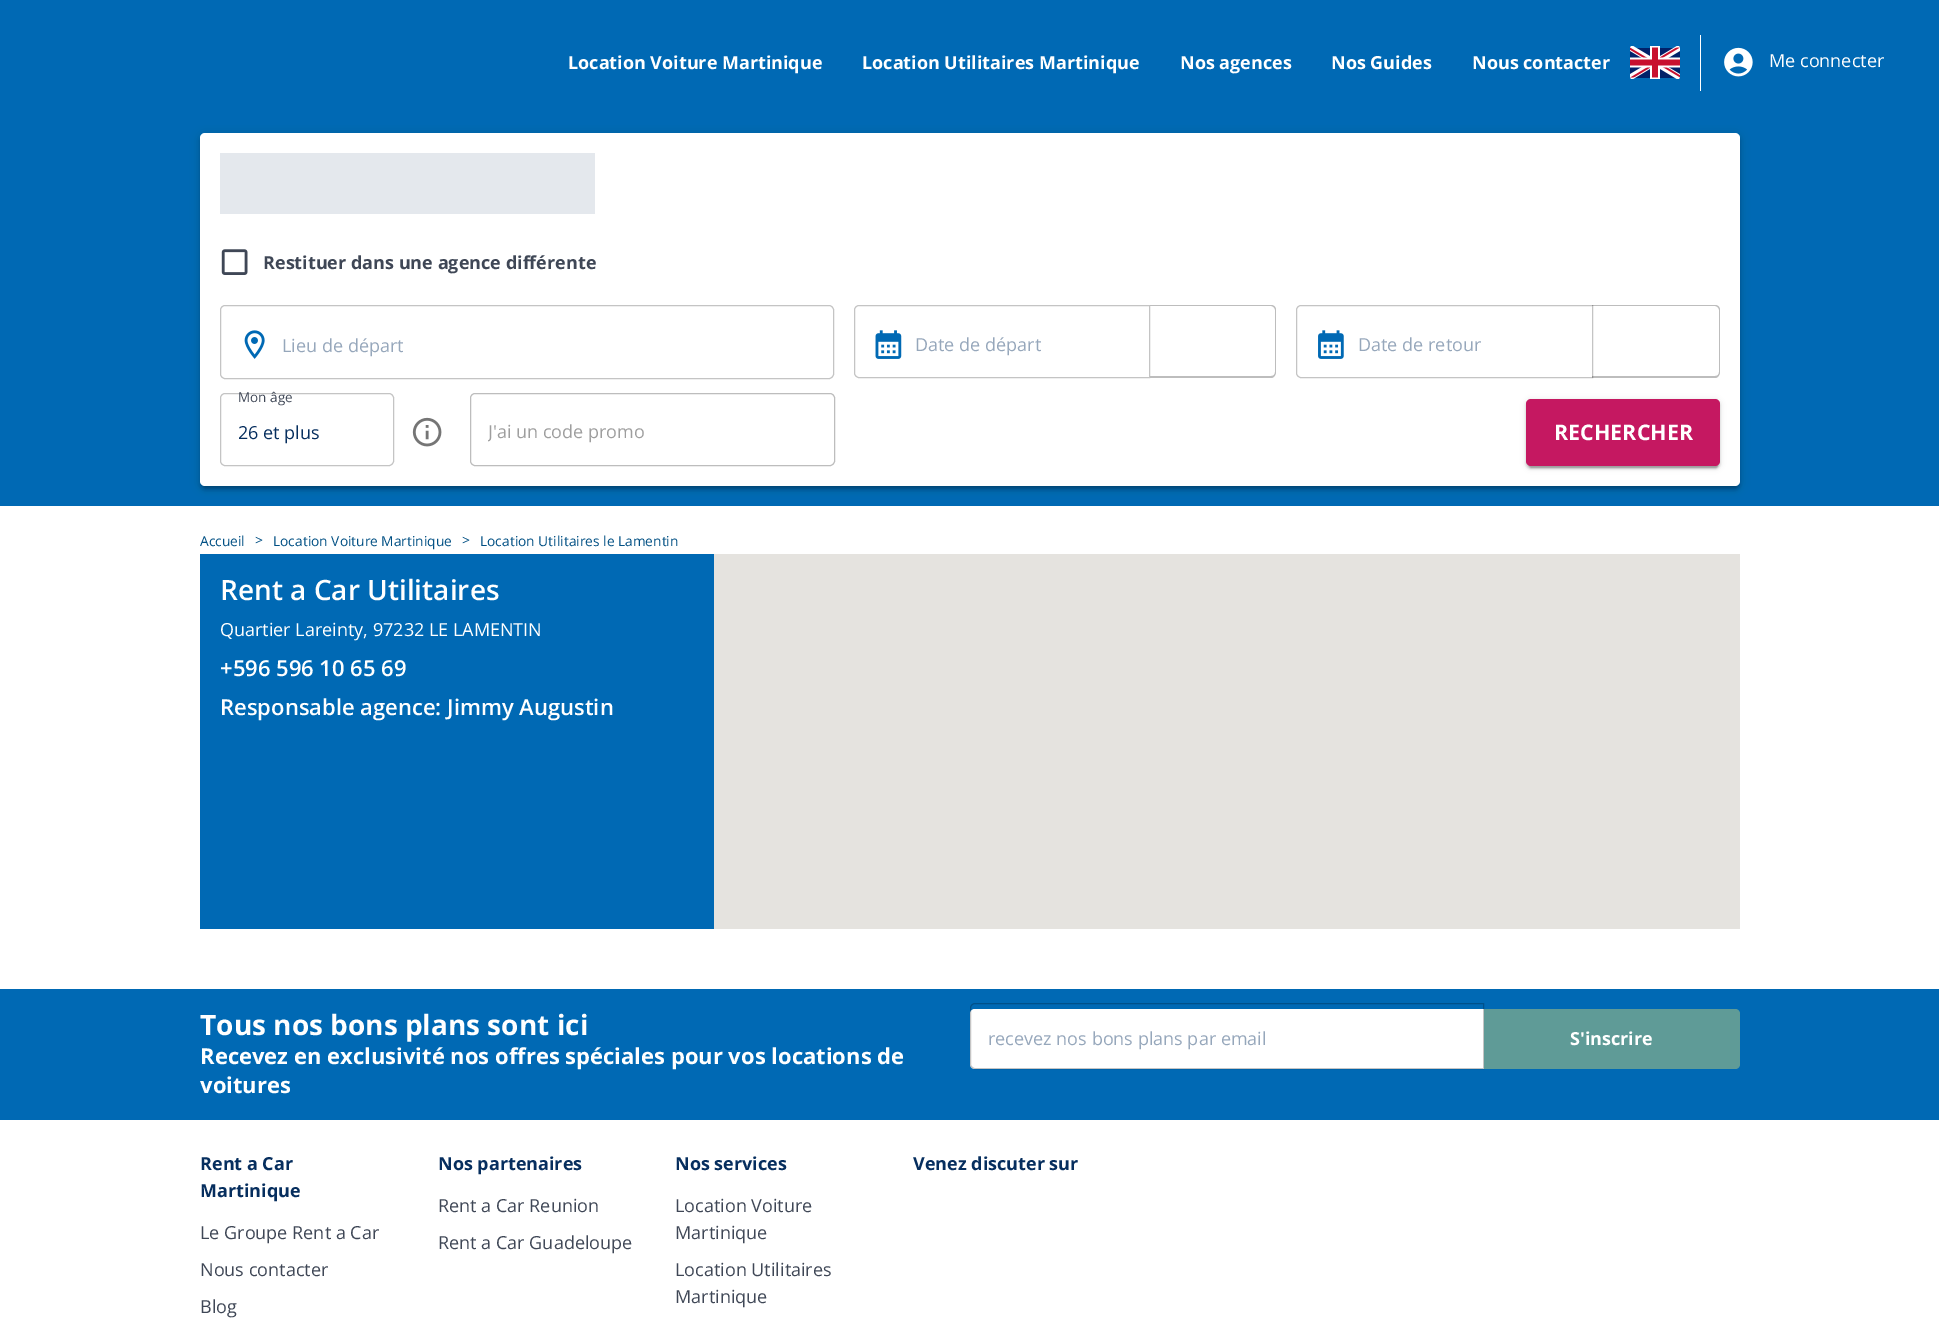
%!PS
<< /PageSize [1939 1335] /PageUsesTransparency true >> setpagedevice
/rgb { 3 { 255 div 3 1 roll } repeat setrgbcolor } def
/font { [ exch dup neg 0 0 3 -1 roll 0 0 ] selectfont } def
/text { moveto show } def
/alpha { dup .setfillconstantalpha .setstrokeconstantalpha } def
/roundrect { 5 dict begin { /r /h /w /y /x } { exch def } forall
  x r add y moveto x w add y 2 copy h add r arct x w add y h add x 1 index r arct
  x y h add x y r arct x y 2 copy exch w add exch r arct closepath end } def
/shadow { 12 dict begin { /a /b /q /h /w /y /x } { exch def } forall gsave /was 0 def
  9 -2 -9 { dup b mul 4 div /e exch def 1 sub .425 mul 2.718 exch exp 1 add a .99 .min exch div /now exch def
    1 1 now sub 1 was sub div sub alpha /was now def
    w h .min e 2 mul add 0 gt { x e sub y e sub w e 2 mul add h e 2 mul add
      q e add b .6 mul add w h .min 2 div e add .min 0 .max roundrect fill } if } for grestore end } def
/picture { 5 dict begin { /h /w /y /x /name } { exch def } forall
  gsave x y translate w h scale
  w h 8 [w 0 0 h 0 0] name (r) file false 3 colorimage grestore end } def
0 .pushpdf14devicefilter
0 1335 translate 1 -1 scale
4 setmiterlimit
255 255 255 rgb
0 0 1939 1335 rectfill
0 105 180 rgb
0 125 1939 381 rectfill
0 0 0 rgb
200 134 1540 354 5 5 0.12 shadow
0 105 180 rgb
0 0 1939 125 rectfill
(img_01.rgb) 1630 46 50 33 picture
255 255 255 rgb
1700 35 1 56 rectfill
(img_02.rgb) 1724 47 29 30 picture
0 0 0 rgb
200 136 1540 354 5 2.5 0.14 shadow
203 139 1535 349 2.5 2 0.2 shadow
255 255 255 rgb
200 133 1540 353 5 roundrect fill
228 232 237 rgb
220 153 375 61 rectfill
(img_03.rgb) 221 249 27 26 picture
(img_04.rgb) 244 330 21 29 picture
196 196 196 rgb
220.5 305.5 613 73 4.5 roundrect stroke
(img_05.rgb) 875 330 27 29 picture
859 305.5 moveto 290.5 0 rlineto 0 72 rlineto -290.5 0 rlineto -2.5 0 -4.5 -2 -4.5 -4.5 rcurveto 0 -63 rlineto 0 -2.5 2 -4.5 4.5 -4.5 rcurveto closepath stroke
189 189 189 rgb
1150 305 moveto 121 0 rlineto 3 0 5 2 5 5 rcurveto 0 62 rlineto 0 3 -2 6 -5 6 rcurveto -121 0 rlineto closepath 1150 306 moveto 121 0 rlineto 2 0 4 2 4 4 rcurveto 0 62 rlineto 0 3 -2 4 -4 4 rcurveto -121 0 rlineto closepath eofill
(img_06.rgb) 1318 330 26 29 picture
196 196 196 rgb
1301 305.5 moveto 291.5 0 rlineto 0 72 rlineto -291.5 0 rlineto -2.5 0 -4.5 -2 -4.5 -4.5 rcurveto 0 -63 rlineto 0 -2.5 2 -4.5 4.5 -4.5 rcurveto closepath stroke
0.26 alpha
0 0 0 rgb
1592 305 moveto 123 0 rlineto 3 0 5 2 5 5 rcurveto 0 62 rlineto 0 3 -2 6 -5 6 rcurveto -123 0 rlineto closepath 1592 306 moveto 123 0 rlineto 2 0 4 2 4 4 rcurveto 0 62 rlineto 0 3 -2 4 -4 4 rcurveto -123 0 rlineto closepath eofill
1 alpha
196 196 196 rgb
220.5 393.5 173 72 4.5 roundrect stroke
(img_07.rgb) 412 417 30 30 picture
189 189 189 rgb
470.5 393.5 364 72 4.5 roundrect stroke
0 0 0 rgb
1526 400 194 68 5 3 0.12 shadow
1526 401 194 68 5 1 0.14 shadow
1529 405 189 63 2.5 0.5 0.2 shadow
197 24 97 rgb
1526 399 194 67 5 roundrect fill
0 105 180 rgb
200 554 514 375 rectfill
229 227 223 rgb
714 554 1026 375 rectfill
0 105 180 rgb
0 989 1939 131 rectfill
255 255 255 rgb
975 1009 moveto 509 0 rlineto 0 60 rlineto -509 0 rlineto -3 0 -5 -2 -5 -5 rcurveto 0 -50 rlineto 0 -3 2 -5 5 -5 rcurveto closepath fill
0.23 alpha
0 0 0 rgb
975 1003.5 moveto 508.5 0 rlineto 0 65 rlineto -508.5 0 rlineto -2.5 0 -4.5 -2 -4.5 -4.5 rcurveto 0 -56 rlineto 0 -2.5 2 -4.5 4.5 -4.5 rcurveto closepath stroke
1 alpha
95 155 151 rgb
1484 1009 moveto 251 0 rlineto 3 0 5 2 5 5 rcurveto 0 50 rlineto 0 3 -2 5 -5 5 rcurveto -251 0 rlineto closepath fill
/OpenSans-Bold 18 font
255 255 255 rgb
(Location Voiture Martinique) 568 69 text
(Location Utilitaires Martinique) 862 69 text
(Nos agences) 1180 69 text
(Nos Guides) 1331 69 text
(Nous contacter) 1472 69 text
/OpenSans-Regular 18 font
(Me connecter) 1769 67 text
/OpenSans-Bold 18 font
63 71 86 rgb
(Restituer dans une agence différente) 263 269 text
/OpenSans-Regular 18 font
150 167 187 rgb
(Lieu de départ) 282 352 text
(Date de départ) 915 351 text
(Date de retour) 1358 351 text
/OpenSans-Regular 13.5 font
63 71 86 rgb
(Mon âge) 238 402 text
/OpenSans-Regular 18 font
6 46 94 rgb
(26 et plus) 238 439 text
gsave
488 419 156 26 rectclip
158 158 158 rgb
(J'ai un code promo) 488 438 text
grestore
/OpenSans-Bold 21.5 font
255 255 255 rgb
(RECHERCHER) 1554 440 text
/OpenSans-Regular 13.75 font
0 79 131 rgb
(Accueil) 200 546 text
(>) 255 545 text
(Location Voiture Martinique) 273 546 text
(>) 462 545 text
(Location Utilitaires le Lamentin) 480 546 text
/OpenSans-SemiBold 28 font
255 255 255 rgb
(Rent a Car Utilitaires) 220 600 text
/OpenSans-Regular 18 font
(Quartier Lareinty, 97232 LE LAMENTIN) 220 636 text
/OpenSans-SemiBold 22 font
(+596 596 10 65 69) 220 676 text
(Responsable agence: Jimmy Augustin) 220 715 text
/OpenSans-Bold 28 font
(Tous nos bons plans sont ici) 200 1035 text
/OpenSans-Bold 22 font
(Recevez en exclusivité nos offres spéciales pour vos locations de) 200 1064 text
(voitures) 200 1093 text
/OpenSans-Regular 18 font
150 167 187 rgb
(recevez nos bons plans par email) 988 1045 text
/OpenSans-Bold 18 font
255 255 255 rgb
(S'inscrire) 1570 1045 text
6 46 94 rgb
(Rent a Car) 200 1170 text
(Martinique) 200 1197 text
/OpenSans-Regular 18 font
63 71 86 rgb
(Le Groupe Rent a Car) 200 1239 text
(Nous contacter) 200 1276 text
(Blog) 200 1313 text
/OpenSans-Bold 18 font
6 46 94 rgb
(Nos partenaires) 438 1170 text
/OpenSans-Regular 18 font
63 71 86 rgb
(Rent a Car Reunion) 438 1212 text
(Rent a Car Guadeloupe) 438 1249 text
/OpenSans-Bold 18 font
6 46 94 rgb
(Nos services) 675 1170 text
/OpenSans-Regular 18 font
63 71 86 rgb
(Location Voiture) 675 1212 text
(Martinique) 675 1239 text
(Location Utilitaires) 675 1276 text
(Martinique) 675 1303 text
/OpenSans-Bold 18 font
6 46 94 rgb
(Venez discuter sur) 913 1170 text
.poppdf14devicefilter showpage
